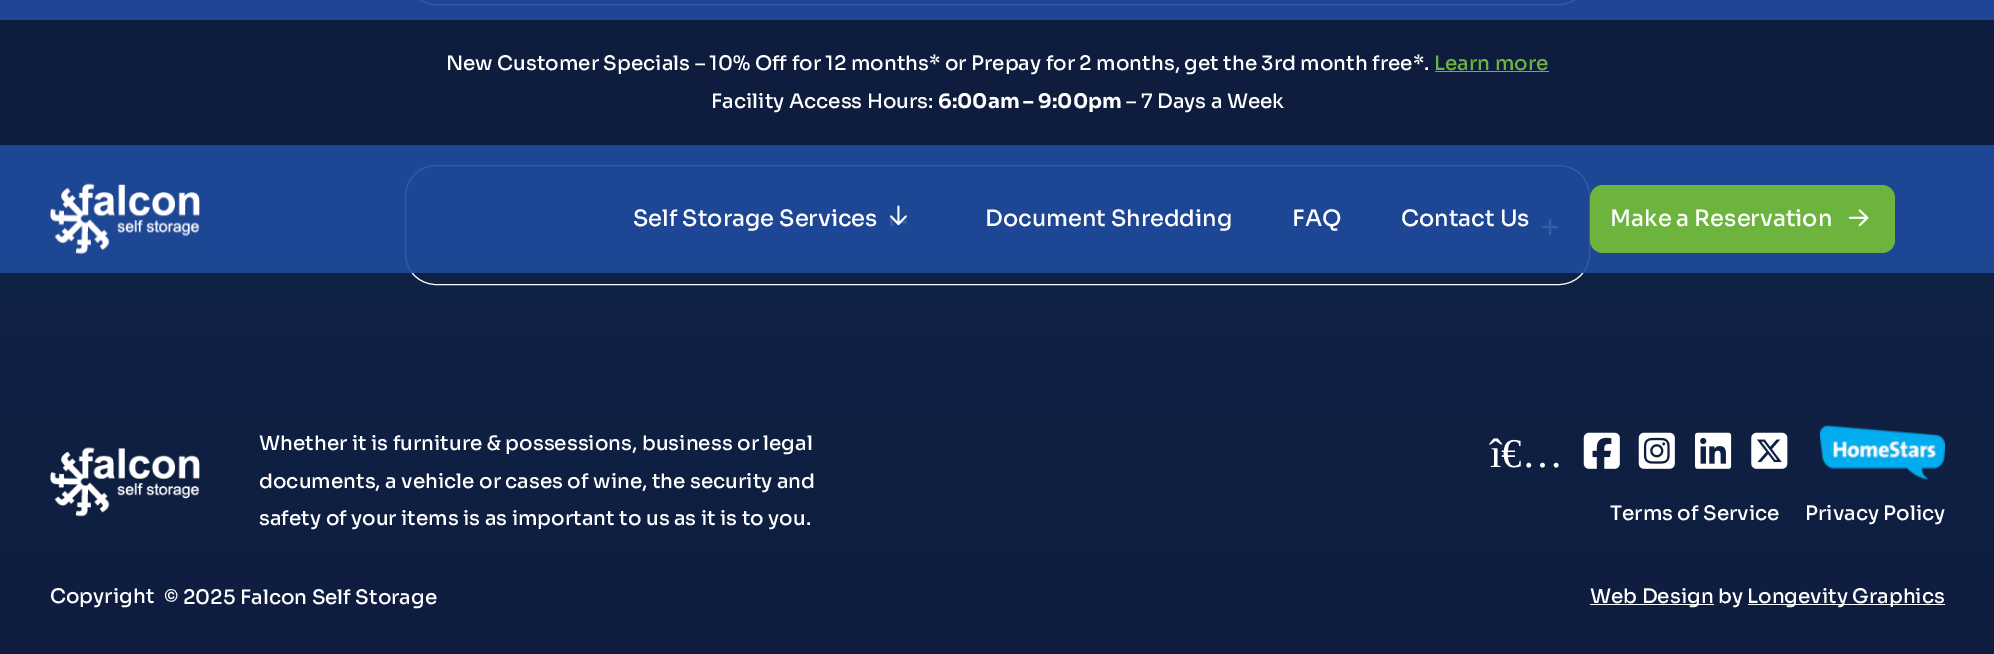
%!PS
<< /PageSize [1994 654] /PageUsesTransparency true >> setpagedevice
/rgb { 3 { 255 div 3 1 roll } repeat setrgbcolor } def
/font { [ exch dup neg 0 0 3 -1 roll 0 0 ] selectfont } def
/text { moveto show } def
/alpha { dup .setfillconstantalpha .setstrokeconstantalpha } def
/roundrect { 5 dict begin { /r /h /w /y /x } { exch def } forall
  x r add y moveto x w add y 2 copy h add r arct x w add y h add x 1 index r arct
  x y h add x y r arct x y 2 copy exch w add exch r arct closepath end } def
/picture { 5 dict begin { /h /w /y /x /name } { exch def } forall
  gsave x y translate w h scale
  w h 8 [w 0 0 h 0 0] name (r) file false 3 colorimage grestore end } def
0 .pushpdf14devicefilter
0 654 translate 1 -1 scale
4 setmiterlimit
255 255 255 rgb
0 0 1994 654 rectfill
(img_01.rgb) 0 0 1994 654 picture
405.5 -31.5 1184 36 30.5 roundrect stroke
405.5 165.5 1184 119 30.5 roundrect stroke
(img_02.rgb) 1541 219 18 17 picture
0.9 alpha
31 74 156 rgb
0 0 1994 273 rectfill
1 alpha
14 29 62 rgb
0 20 1994 125 rectfill
109 180 62 rgb
1435 71 114 1 rectfill
(img_03.rgb) 50 183 150 71 picture
(img_04.rgb) 890 205 17 21 picture
1590 185 305 68 13 roundrect fill
(img_05.rgb) 1848 209 21 18 picture
(img_06.rgb) 50 447 150 70 picture
(img_07.rgb) 1583 432 37 37 picture
(img_08.rgb) 1638 432 37 37 picture
(img_09.rgb) 1695 432 37 37 picture
(img_10.rgb) 1751 432 37 37 picture
(img_11.rgb) 1820 425 125 55 picture
255 255 255 rgb
1590 604 124 1 rectfill
1748 604 197 1 rectfill
/Sora-Medium 20 font
(New Customer Specials – 10% Off for 12 months* or Prepay for 2 months, get the 3rd month free*.) 446 70 text
109 180 62 rgb
(Learn more) 1434 70 text
255 255 255 rgb
(Facility Access Hours:) 711 108 text
/Sora-Bold 20 font
(6:00am – 9:00pm) 938 108 text
/Sora-Medium 20 font
(– 7 Days a Week) 1126 108 text
/Sora-Medium 22.5 font
(Self Storage Services) 633 226 text
(Document Shredding) 985 226 text
(FAQ) 1292 226 text
(Contact Us) 1401 226 text
(Make a Reservation) 1610 226 text
/Sora-Medium 20 font
(Whether it is furniture & possessions, business or legal) 259 450 text
(documents, a vehicle or cases of wine, the security and) 259 488 text
(safety of your items is as important to us as it is to you.) 259 525 text
/LiberationSerif-Regular 41 font
(î€…) 1490 467 text
/Sora-Medium 20 font
(Terms of Service) 1610 520 text
(Privacy Policy) 1805 520 text
(Copyright) 50 603 text
(© 2025 Falcon Self Storage) 164 604 text
(Web Design by) 1590 603 text
(Longevity Graphics) 1747 603 text
.poppdf14devicefilter showpage
